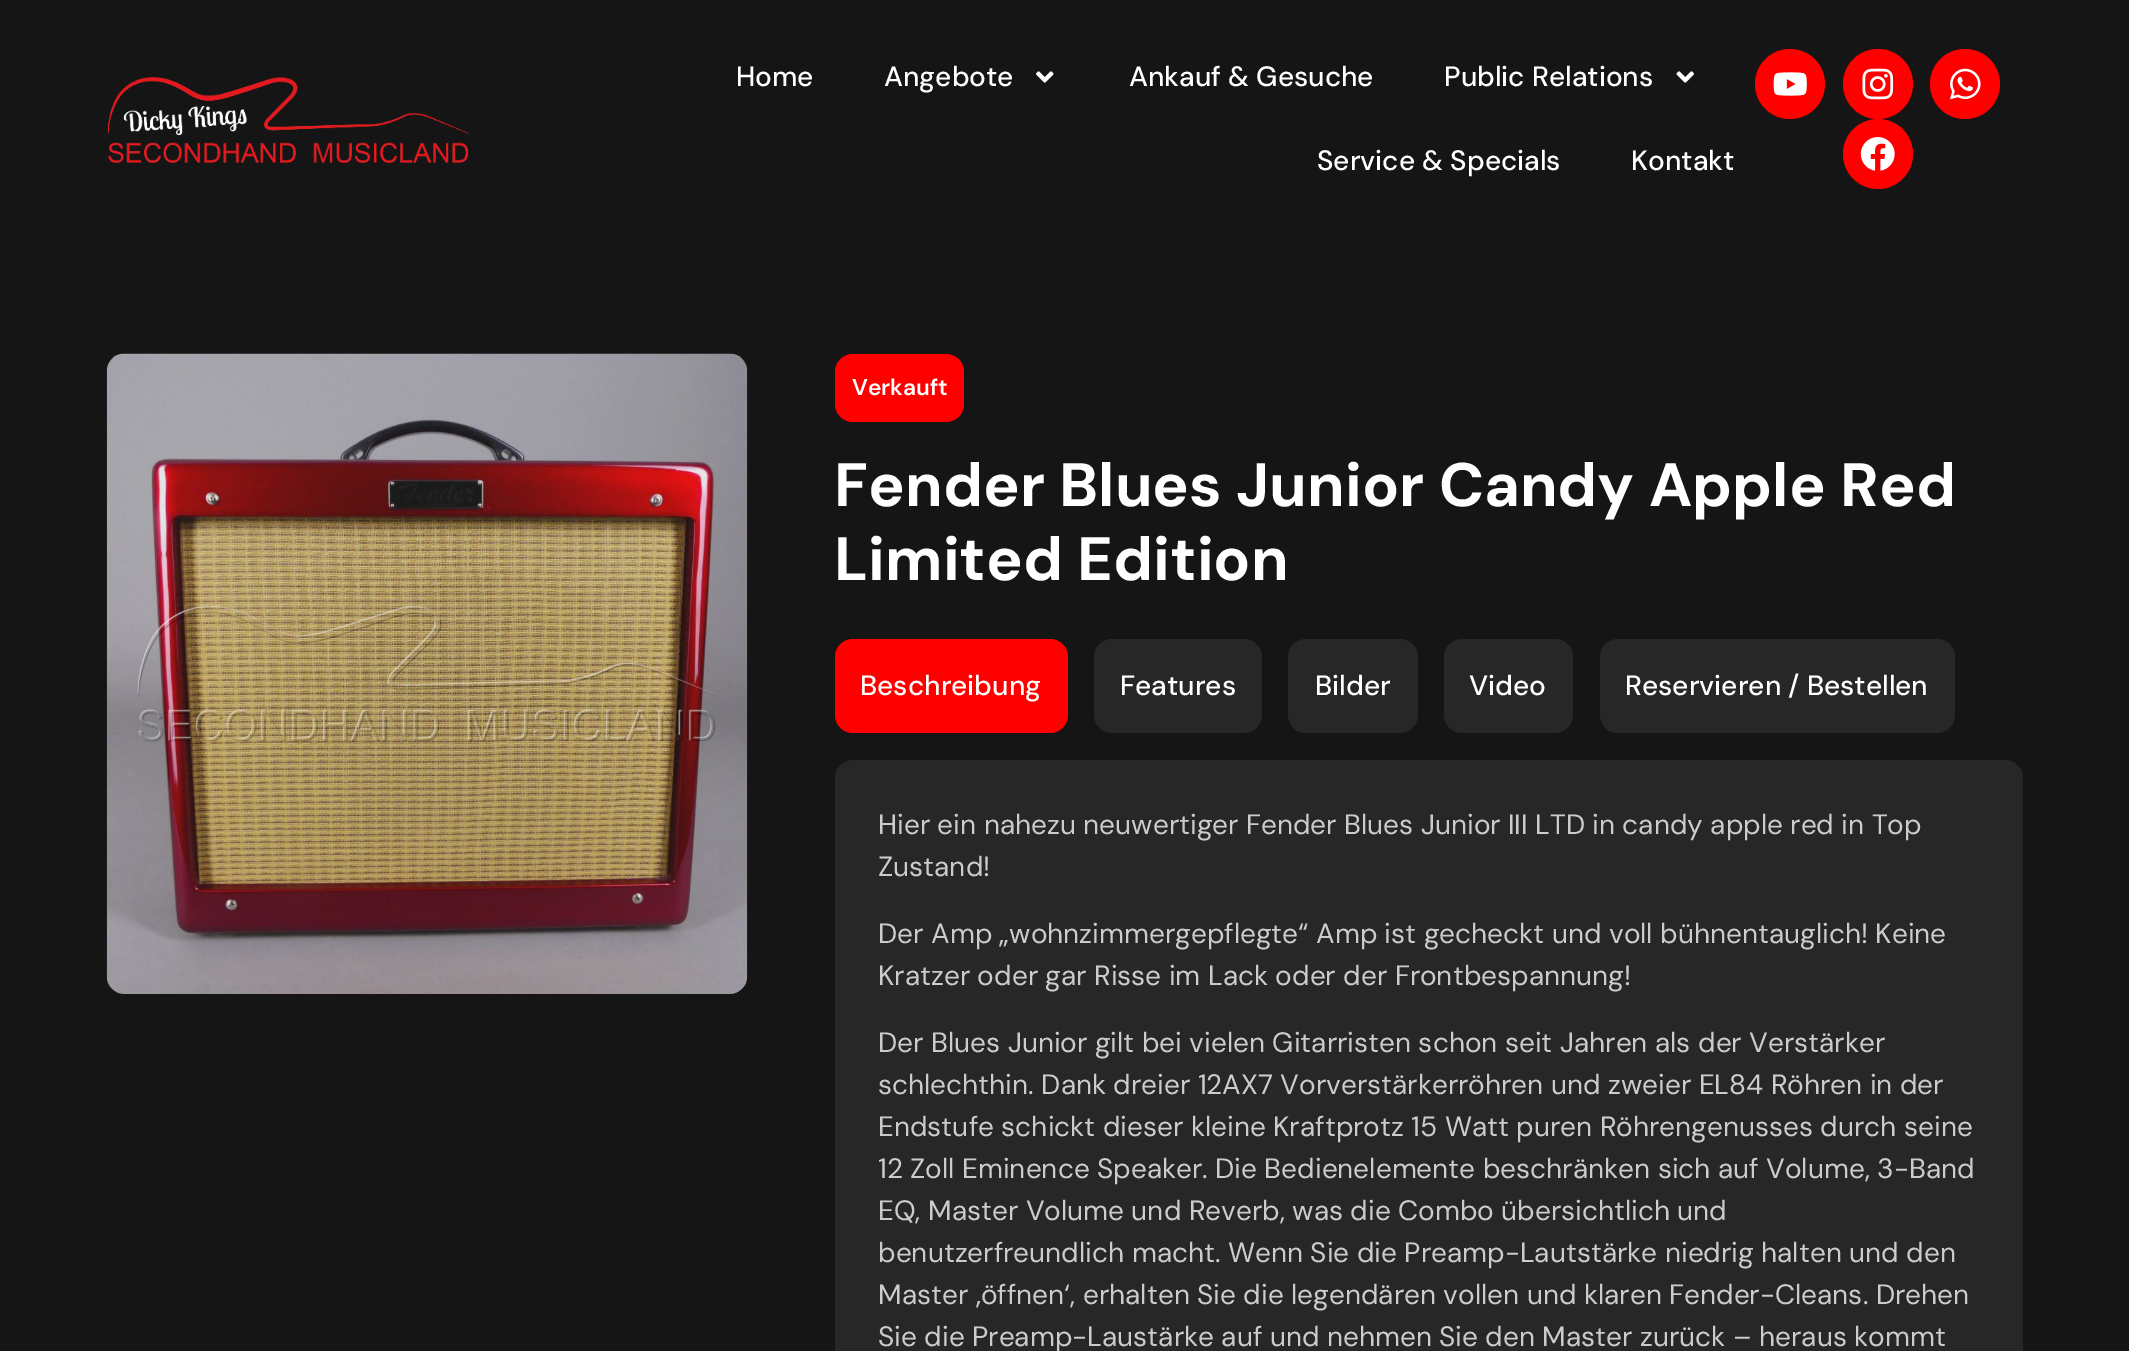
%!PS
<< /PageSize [2129 1351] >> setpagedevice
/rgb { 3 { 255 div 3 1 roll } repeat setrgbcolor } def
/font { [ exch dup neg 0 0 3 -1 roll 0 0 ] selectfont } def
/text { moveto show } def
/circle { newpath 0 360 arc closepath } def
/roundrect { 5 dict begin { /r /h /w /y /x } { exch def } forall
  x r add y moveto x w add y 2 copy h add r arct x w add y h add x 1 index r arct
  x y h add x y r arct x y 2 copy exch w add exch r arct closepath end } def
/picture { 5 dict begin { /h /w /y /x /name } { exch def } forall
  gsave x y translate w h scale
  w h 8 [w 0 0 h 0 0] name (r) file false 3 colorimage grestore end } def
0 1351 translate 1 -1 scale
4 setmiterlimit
21 21 21 rgb
0 0 2129 1351 rectfill
(img_01.rgb) 107 77 362 86 picture
(img_02.rgb) 1036 71 18 12 picture
(img_03.rgb) 1676 71 18 12 picture
254 0 0 rgb
1790 84 35 circle fill
(img_04.rgb) 1773 72 34 24 picture
1878 84 35 circle fill
(img_05.rgb) 1862 68 32 32 picture
1965 84 35 circle fill
(img_06.rgb) 1950 68 31 32 picture
1878 154 35 circle fill
(img_07.rgb) 1860 137 35 34 picture
(img_08.rgb) 106 353 642 641 picture
835 354 129 68 18 roundrect fill
835 639 233 94 18 roundrect fill
39 39 39 rgb
1094 639 168 94 18 roundrect fill
1288 639 130 94 18 roundrect fill
1444 639 129 94 18 roundrect fill
1600 639 355 94 18 roundrect fill
835 760 1188 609 18 roundrect fill
/DMSans-Medium 28 font
255 255 255 rgb
(Home) 736 86 text
(Angebote) 884 86 text
(Ankauf & Gesuche) 1129 86 text
(Public Relations) 1444 86 text
(Service & Specials) 1317 170 text
(Kontakt) 1631 170 text
/DMSans-SemiBold 22.75 font
(Verkauft) 852 395 text
/DMSans-Bold 61.25 font
(Fender Blues Junior Candy Apple Red) 834 506 text
(Limited Edition) 834 580 text
/DMSans-Medium 28 font
(Beschreibung) 860 695 text
(Features) 1120 695 text
(Bilder) 1315 695 text
(Video) 1469 695 text
(Reservieren / Bestellen) 1625 695 text
/DMSans-Regular 28 font
204 204 204 rgb
(Hier ein nahezu neuwertiger Fender Blues Junior III LTD in candy apple red in Top) 878 834 text
(Zustand!) 878 876 text
(Der Amp „wohnzimmergepflegte“ Amp ist gecheckt und voll bühnentauglich! Keine) 878 943 text
(Kratzer oder gar Risse im Lack oder der Frontbespannung!) 878 985 text
(Der Blues Junior gilt bei vielen Gitarristen schon seit Jahren als der Verstärker) 878 1052 text
(schlechthin. Dank dreier 12AX7 Vorverstärkerröhren und zweier EL84 Röhren in der) 878 1094 text
(Endstufe schickt dieser kleine Kraftprotz 15 Watt puren Röhrengenusses durch seine) 878 1136 text
(12 Zoll Eminence Speaker. Die Bedienelemente beschränken sich auf Volume, 3-Band) 878 1178 text
(EQ, Master Volume und Reverb, was die Combo übersichtlich und) 878 1220 text
(benutzerfreundlich macht. Wenn Sie die Preamp-Lautstärke niedrig halten und den) 878 1262 text
(Master ‚öffnen‘, erhalten Sie die legendären vollen und klaren Fender-Cleans. Drehen) 878 1304 text
(Sie die Preamp-Laustärke auf und nehmen Sie den Master zurück – heraus kommt) 878 1346 text
showpage
